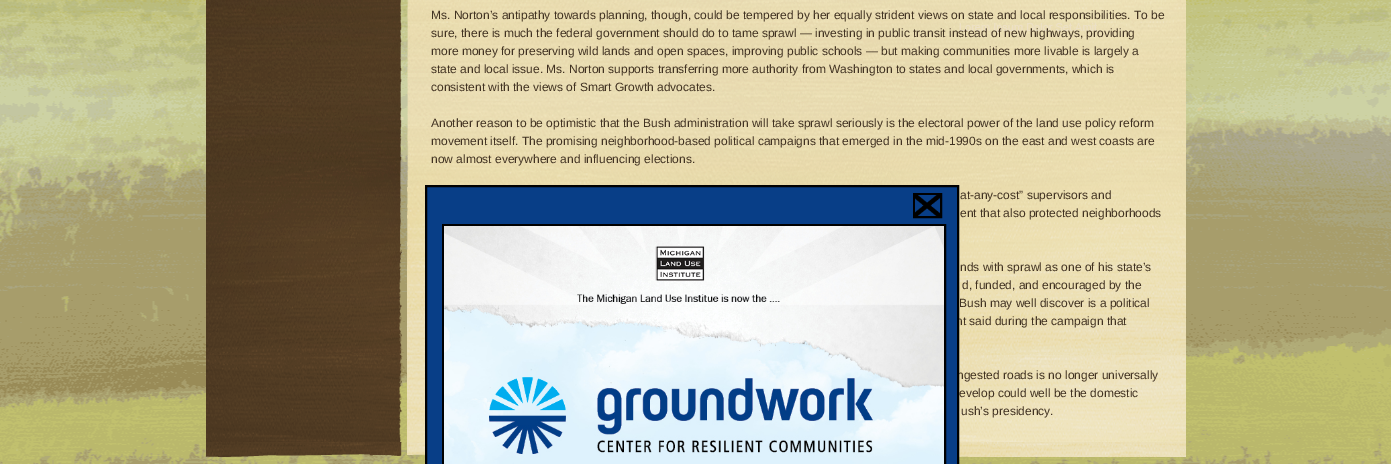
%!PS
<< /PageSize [1391 464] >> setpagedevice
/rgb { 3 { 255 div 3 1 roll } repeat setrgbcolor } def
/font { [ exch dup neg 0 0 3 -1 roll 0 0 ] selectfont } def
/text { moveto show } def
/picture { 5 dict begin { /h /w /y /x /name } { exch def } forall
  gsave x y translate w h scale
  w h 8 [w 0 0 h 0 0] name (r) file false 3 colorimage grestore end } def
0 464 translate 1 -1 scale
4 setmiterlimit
255 255 255 rgb
0 0 1391 464 rectfill
(img_01.rgb) 0 0 1391 464 picture
(img_02.rgb) 206 0 980 442 picture
(img_03.rgb) 206 442 980 15 picture
/LiberationSans-Regular 12 font
65 50 34 rgb
(Ms. Norton’s antipathy towards planning, though, could be tempered by her equally strident views on state and local responsibilities. To be) 431 19 text
(sure, there is much the federal government should do to tame sprawl — investing in public transit instead of new highways, providing) 431 37 text
(more money for preserving wild lands and open spaces, improving public schools — but making communities more livable is largely a) 431 55 text
(state and local issue. Ms. Norton supports transferring more authority from Washington to states and local governments, which is) 431 73 text
(consistent with the views of Smart Growth advocates.) 431 91 text
(Another reason to be optimistic that the Bush administration will take sprawl seriously is the electoral power of the land use policy reform) 431 127 text
(movement itself. The promising neighborhood-based political campaigns that emerged in the mid-1990s on the east and west coasts are) 431 145 text
(now almost everywhere and influencing elections.) 431 163 text
(at-any-cost” supervisors and) 960 199 text
(ent that also protected neighborhoods) 960 217 text
(nds with sprawl as one of his state’s) 960 271 text
(d, funded, and encouraged by the) 962 289 text
(Bush may well discover is a political) 959 307 text
(nt said during the campaign that) 956 325 text
(ngested roads is no longer universally) 957 379 text
(evelop could well be the domestic) 959 397 text
(ush’s presidency.) 961 415 text
8 62 135 rgb
426 186 moveto 532 0 rlineto 0 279 rlineto -532 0 rlineto closepath gsave fill grestore
0 0 0 rgb
2 setlinewidth
stroke
914 194 27 23 rectstroke
(img_04.rgb) 915 195 25 21 picture
443 225 502 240 rectstroke
(img_05.rgb) 444 226 500 238 picture
showpage
